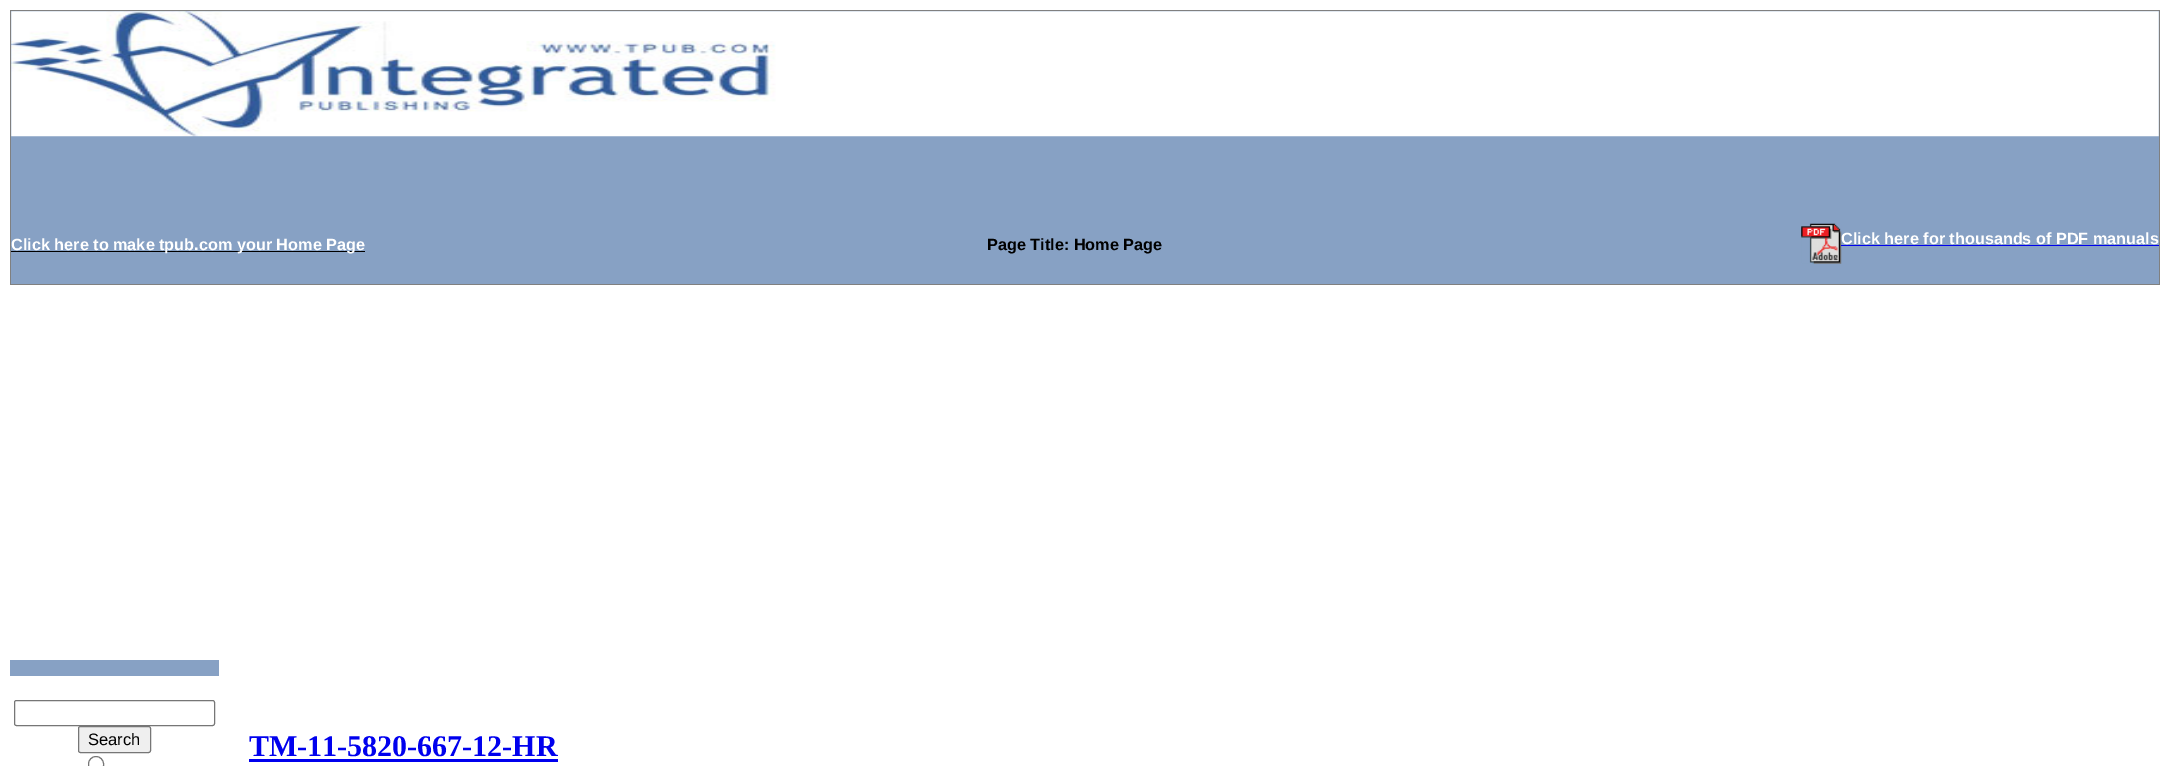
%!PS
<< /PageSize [2170 766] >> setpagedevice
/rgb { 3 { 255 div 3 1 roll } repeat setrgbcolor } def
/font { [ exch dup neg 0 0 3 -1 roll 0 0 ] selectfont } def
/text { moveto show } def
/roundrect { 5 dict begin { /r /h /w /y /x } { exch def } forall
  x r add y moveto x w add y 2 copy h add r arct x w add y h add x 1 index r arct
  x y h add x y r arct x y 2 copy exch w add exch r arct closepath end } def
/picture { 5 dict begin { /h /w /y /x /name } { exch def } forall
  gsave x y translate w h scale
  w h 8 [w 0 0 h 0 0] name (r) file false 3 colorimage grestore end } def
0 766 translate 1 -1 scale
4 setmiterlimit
255 255 255 rgb
0 0 2170 766 rectfill
135 161 196 rgb
11 11 2148 273 rectfill
128 128 128 rgb
10 10 2150 1 rectfill
2159 10 1 275 rectfill
10 284 2150 1 rectfill
10 10 1 275 rectfill
(img_01.rgb) 11 11 2148 126 picture
0 0 0 rgb
11 251 354 1 rectfill
(img_02.rgb) 1801 223 41 41 picture
0 0 238 rgb
1841 245 318 1 rectfill
135 161 196 rgb
10 660 209 16 rectfill
118 118 118 rgb
14.5 700.5 200 25 2 roundrect stroke
239 239 239 rgb
78.5 726.5 72 26 2 roundrect gsave fill grestore
118 118 118 rgb
stroke
88.5 756.5 15 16 7.5 roundrect stroke
0 0 238 rgb
249 759 309 3 rectfill
/LiberationSans-Bold 16.25 font
255 255 255 rgb
(Click here to make tpub.com your Home Page) 11 250 text
0 0 0 rgb
(Page Title: Home Page) 987 250 text
255 255 255 rgb
(Click here for thousands of PDF manuals) 1841 244 text
/LiberationSans-Regular 16.5 font
0 0 0 rgb
(Search) 88 745 text
/LiberationSerif-Bold 30 font
0 0 238 rgb
(TM-11-5820-667-12-HR) 249 756 text
showpage
